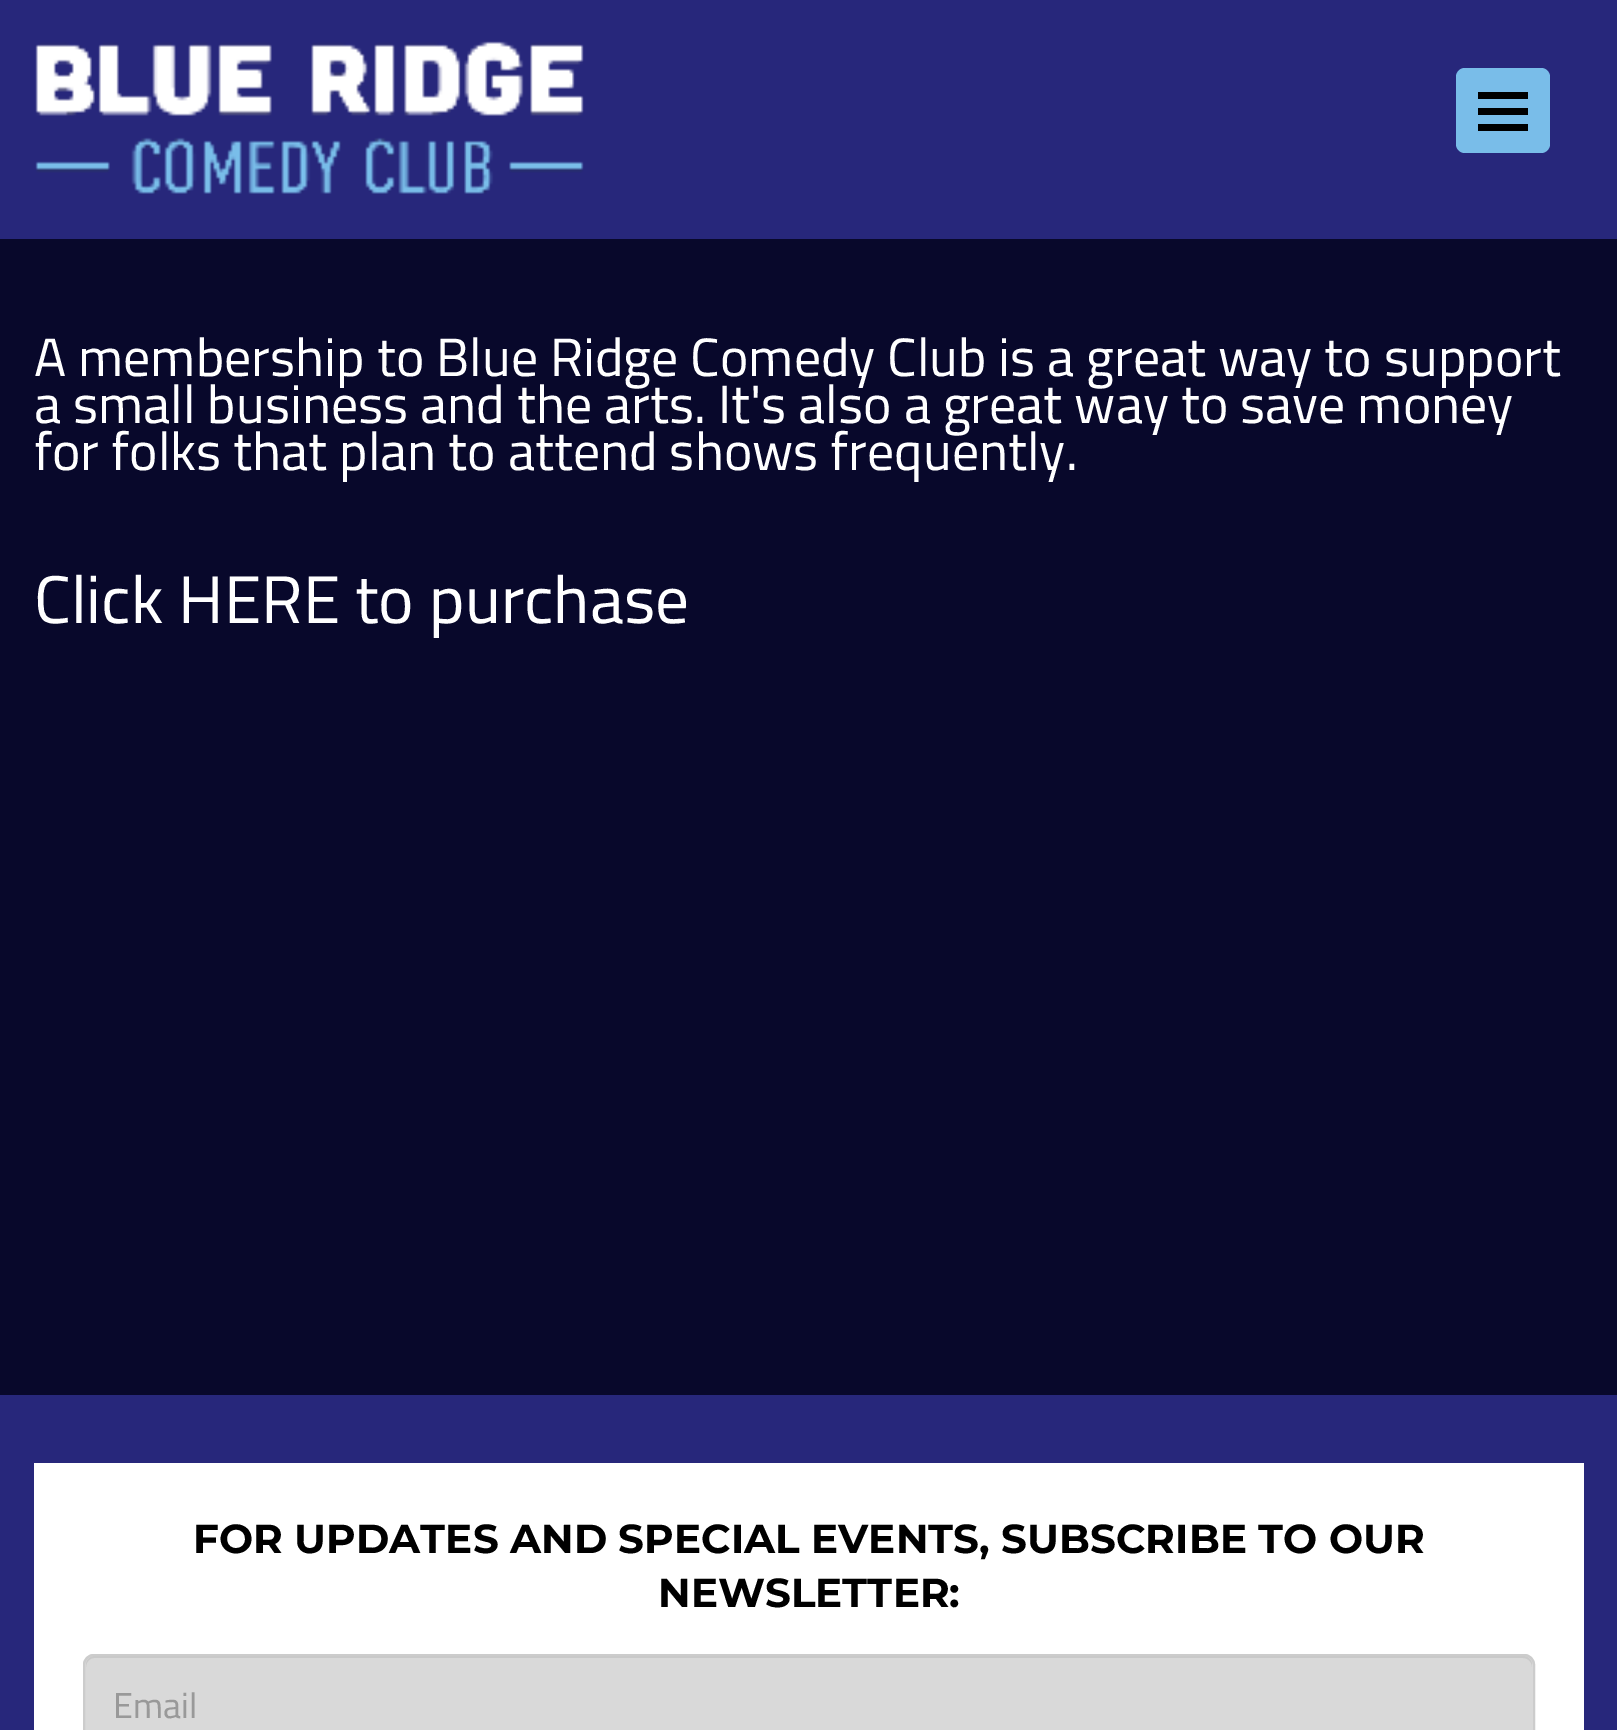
%!PS
<< /PageSize [1617 1730] >> setpagedevice
/rgb { 3 { 255 div 3 1 roll } repeat setrgbcolor } def
/font { [ exch dup neg 0 0 3 -1 roll 0 0 ] selectfont } def
/text { moveto show } def
/roundrect { 5 dict begin { /r /h /w /y /x } { exch def } forall
  x r add y moveto x w add y 2 copy h add r arct x w add y h add x 1 index r arct
  x y h add x y r arct x y 2 copy exch w add exch r arct closepath end } def
/picture { 5 dict begin { /h /w /y /x /name } { exch def } forall
  gsave x y translate w h scale
  w h 8 [w 0 0 h 0 0] name (r) file false 3 colorimage grestore end } def
0 1730 translate 1 -1 scale
4 setmiterlimit
8 8 43 rgb
0 0 1617 1730 rectfill
39 39 123 rgb
0 0 1617 239 rectfill
(img_01.rgb) 35 41 549 153 picture
121 189 233 rgb
1456 68 94 85 9 roundrect fill
0 0 0 rgb
1478 92 50 7 rectfill
1478 108 50 7 rectfill
1478 124 50 7 rectfill
39 39 123 rgb
0 1395 1617 335 rectfill
255 255 255 rgb
34 1463 1550 267 rectfill
217 217 217 rgb
83 1654 1452 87 11 roundrect fill
201 201 201 rgb
94 1658 moveto 1429 0 rlineto 5 0 9 4 9 9 rcurveto 0 -2 rlineto 0 -5 -4 -9 -9 -9 rcurveto -1428 0 rlineto -5 0 -9 4 -9 9 rcurveto 0 2 rlineto 0 -5 4 -9 8 -9 rcurveto closepath fill
204 204 204 rgb
2 setlinewidth
84 1655 1450 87 10 roundrect stroke
/Cairo-Regular 54 font
255 255 255 rgb
(A membership to Blue Ridge Comedy Club is a great way to support) 34 376 text
(a small business and the arts. It's also a great way to save money) 34 423 text
(for folks that plan to attend shows frequently.) 34 470 text
/Cairo-Regular 67.5 font
(Click HERE to purchase) 34 623 text
/Montserrat-Bold 40.5 font
0 0 0 rgb
(FOR UPDATES AND SPECIAL EVENTS, SUBSCRIBE TO OUR) 193 1553 text
(NEWSLETTER:) 658 1607 text
/Cairo-Regular 36 font
153 153 153 rgb
(Email) 113 1718 text
showpage
